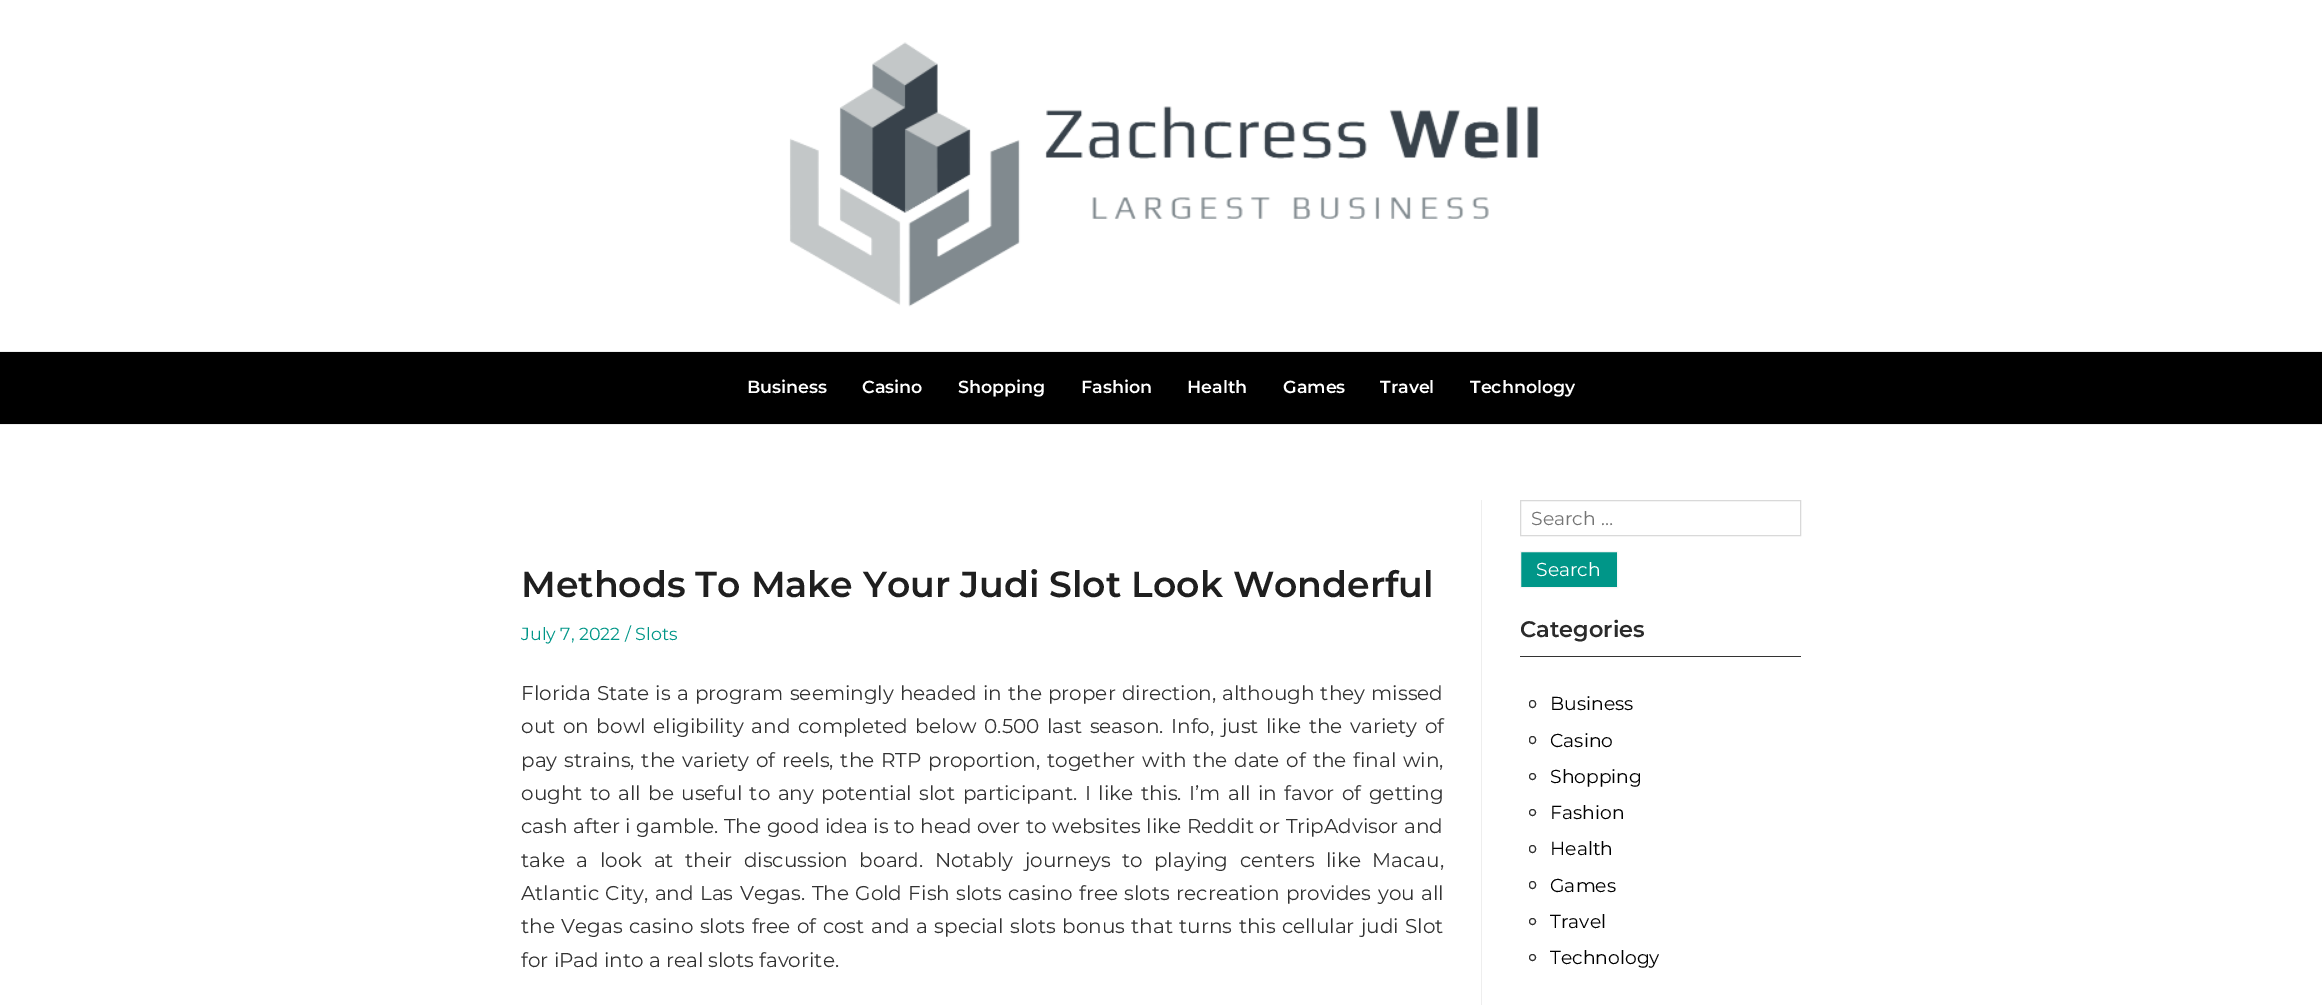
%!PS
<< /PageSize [2322 1005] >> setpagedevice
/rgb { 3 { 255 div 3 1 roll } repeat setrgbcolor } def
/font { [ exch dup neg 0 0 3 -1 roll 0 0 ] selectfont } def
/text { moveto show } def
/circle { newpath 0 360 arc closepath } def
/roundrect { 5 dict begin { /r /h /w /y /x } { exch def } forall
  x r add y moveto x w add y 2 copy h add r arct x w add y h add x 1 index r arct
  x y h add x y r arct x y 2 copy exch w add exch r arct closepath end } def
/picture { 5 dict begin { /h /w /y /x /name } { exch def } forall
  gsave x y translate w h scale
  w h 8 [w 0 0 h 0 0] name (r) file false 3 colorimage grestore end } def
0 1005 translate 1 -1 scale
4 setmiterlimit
255 255 255 rgb
0 0 2322 1005 rectfill
(img_01.rgb) 789 42 750 265 picture
0 0 0 rgb
0 352 2322 72 rectfill
237 238 238 rgb
0 351 2322 1 rectfill
0 424 2322 1 rectfill
238 238 238 rgb
1481 500 1 505 rectfill
217 217 217 rgb
1520.5 500.5 280 35 rectstroke
0 150 136 rgb
1520.5 551.5 moveto 97 0 rlineto 0 36 rlineto -97 0 rlineto closepath gsave fill grestore
246 246 246 rgb
stroke
51 51 51 rgb
1520 656 281 1 rectfill
1529.5 700.5 6 7 3 roundrect stroke
1529.5 736.5 6 7 3 roundrect stroke
1532.5 776.5 3 circle stroke
1532.5 812.5 3 circle stroke
1529.5 845.5 6 7 3 roundrect stroke
1529.5 881.5 6 7 3 roundrect stroke
1532.5 921.5 3 circle stroke
1532.5 957.5 3 circle stroke
/Montserrat-SemiBold 17.5 font
255 255 255 rgb
(Business) 747 393 text
(Casino) 862 393 text
(Shopping) 958 393 text
(Fashion) 1081 393 text
(Health) 1187 393 text
(Games) 1283 393 text
(Travel) 1380 393 text
(Technology) 1470 393 text
/Montserrat-SemiBold 36.25 font
31 31 31 rgb
(Methods To Make Your Judi Slot Look Wonderful) 521 597 text
/Montserrat-Regular 17.5 font
0 150 136 rgb
(July 7, 2022 / Slots) 521 640 text
/Montserrat-Regular 20 font
51 51 51 rgb
521 700 moveto 1 0 32 (Florida State is a program seemingly headed in the proper direction, although they missed) widthshow
521 733 moveto 2.4 0 32 (out on bowl eligibility and completed below 0.500 last season. Info, just like the variety of) widthshow
521 767 moveto 1.6 0 32 (pay strains, the variety of reels, the RTP proportion, together with the date of the final win,) widthshow
521 800 moveto 2.25 0 32 (ought to all be useful to any potential slot participant. I like this. I’m all in favor of getting) widthshow
521 833 moveto 0.4 0 32 (cash after i gamble. The good idea is to head over to websites like Reddit or TripAdvisor and) widthshow
521 867 moveto 6.25 0 32 (take a look at their discussion board. Notably journeys to playing centers like Macau,) widthshow
521 900 moveto 1.2 0 32 (Atlantic City, and Las Vegas. The Gold Fish slots casino free slots recreation provides you all) widthshow
521 933 moveto 1.2 0 32 (the Vegas casino slots free of cost and a special slots bonus that turns this cellular judi Slot) widthshow
(for iPad into a real slots favorite.) 521 967 text
/Montserrat-Regular 18.75 font
117 117 117 rgb
(Search …) 1531 525 text
255 255 255 rgb
(Search) 1536 576 text
/Montserrat-SemiBold 22.5 font
43 43 43 rgb
(Categories) 1520 637 text
/Montserrat-Regular 18.75 font
0 0 0 rgb
(Business) 1550 710 text
(Casino) 1550 747 text
(Shopping) 1550 783 text
(Fashion) 1550 819 text
(Health) 1550 855 text
(Games) 1550 892 text
(Travel) 1550 928 text
(Technology) 1550 964 text
showpage
